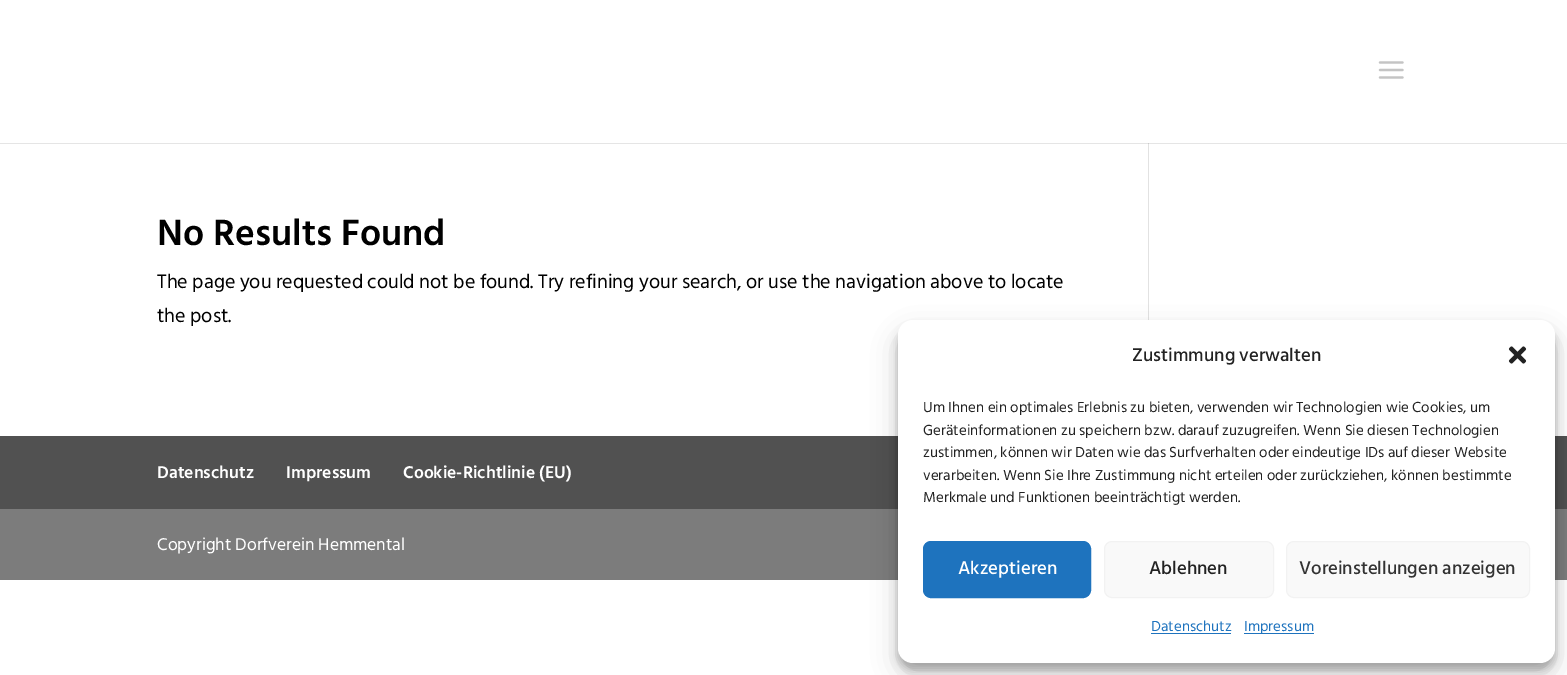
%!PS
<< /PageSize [1567 675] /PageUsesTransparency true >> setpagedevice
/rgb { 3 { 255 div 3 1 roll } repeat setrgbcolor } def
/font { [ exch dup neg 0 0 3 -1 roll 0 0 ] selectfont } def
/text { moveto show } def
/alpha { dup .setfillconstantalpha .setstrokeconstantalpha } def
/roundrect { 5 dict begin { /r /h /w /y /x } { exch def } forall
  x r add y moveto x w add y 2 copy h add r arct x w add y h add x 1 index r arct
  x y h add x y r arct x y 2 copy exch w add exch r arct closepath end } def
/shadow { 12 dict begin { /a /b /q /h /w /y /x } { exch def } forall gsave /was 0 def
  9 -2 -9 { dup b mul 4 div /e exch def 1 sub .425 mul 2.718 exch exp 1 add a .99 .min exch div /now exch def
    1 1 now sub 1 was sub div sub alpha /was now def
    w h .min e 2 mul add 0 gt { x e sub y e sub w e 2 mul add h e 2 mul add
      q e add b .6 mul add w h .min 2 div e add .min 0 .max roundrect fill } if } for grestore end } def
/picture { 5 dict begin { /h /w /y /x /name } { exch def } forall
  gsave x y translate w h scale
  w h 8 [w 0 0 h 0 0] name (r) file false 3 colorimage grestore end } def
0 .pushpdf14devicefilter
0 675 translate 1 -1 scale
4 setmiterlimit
255 255 255 rgb
0 0 1567 675 rectfill
226 226 226 rgb
1148 143 1 177 rectfill
0.1 alpha
0 0 0 rgb
0 142 moveto 0 2 rlineto 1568 0 rlineto 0 -143 rlineto 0 141 rlineto closepath fill
1 alpha
255 255 255 rgb
0 142 1567 1 rectfill
(img_01.rgb) 1378 61 26 18 picture
81 81 81 rgb
0 436 1567 73 rectfill
124 124 124 rgb
0 509 1567 71 rectfill
0 0 0 rgb
898 328 657 342 15 4 0.23 shadow
898 333 657 342 15 12.5 0.19 shadow
255 255 255 rgb
898 320 657 343 15 roundrect fill
(img_02.rgb) 1508 346 19 18 picture
30 115 190 rgb
923.5 541.5 167 56 7.5 roundrect gsave fill grestore
stroke
249 249 249 rgb
1104.5 541.5 169 56 7.5 roundrect gsave fill grestore
242 242 242 rgb
stroke
249 249 249 rgb
1286.5 541.5 243 56 7.5 roundrect gsave fill grestore
242 242 242 rgb
stroke
30 115 190 rgb
1151 633 80 1 rectfill
1244 633 70 1 rectfill
/HindSiliguri-SemiBold 37.5 font
0 0 0 rgb
(No Results Found) 157 245 text
/HindSiliguri-Regular 20 font
(The page you requested could not be found. Try refining your search, or use the navigation above to locate) 157 288 text
(the post.) 157 322 text
/HindSiliguri-SemiBold 17.5 font
255 255 255 rgb
(Datenschutz) 157 478 text
(Impressum) 286 478 text
(Cookie-Richtlinie \(EU\)) 403 478 text
/HindSiliguri-Regular 17.5 font
(Copyright Dorfverein Hemmental) 157 550 text
/HindSiliguri-Medium 18.75 font
34 34 34 rgb
(Zustimmung verwalten) 1132 361 text
/HindSiliguri-Regular 15 font
(Um Ihnen ein optimales Erlebnis zu bieten, verwenden wir Technologien wie Cookies, um) 923 412 text
(Geräteinformationen zu speichern bzw. darauf zuzugreifen. Wenn Sie diesen Technologien) 923 435 text
(zustimmen, können wir Daten wie das Surfverhalten oder eindeutige IDs auf dieser Website) 923 457 text
(verarbeiten. Wenn Sie Ihre Zustimmung nicht erteilen oder zurückziehen, können bestimmte) 923 480 text
(Merkmale und Funktionen beeinträchtigt werden.) 923 502 text
/HindSiliguri-Medium 18.75 font
255 255 255 rgb
(Akzeptieren) 958 574 text
34 34 34 rgb
(Ablehnen) 1149 574 text
51 51 51 rgb
(Voreinstellungen anzeigen) 1299 574 text
/HindSiliguri-Regular 15 font
30 115 190 rgb
(Datenschutz) 1151 631 text
(Impressum) 1244 631 text
.poppdf14devicefilter showpage
